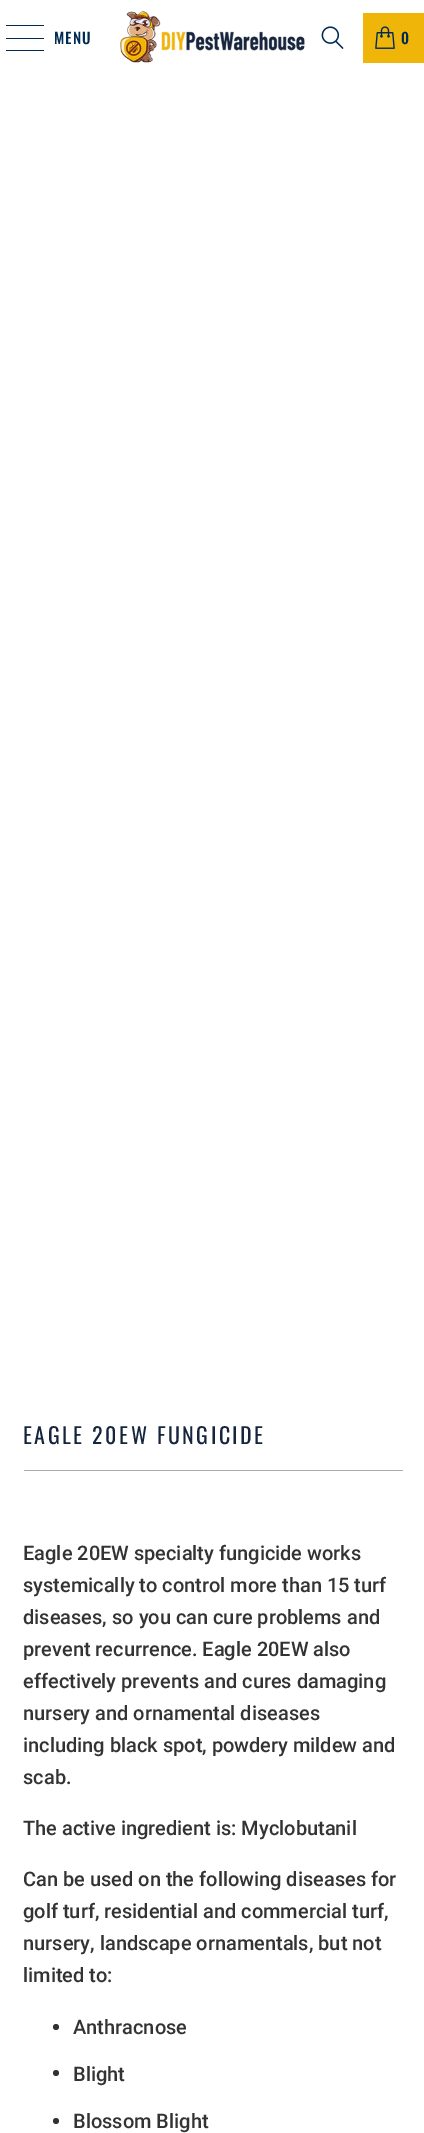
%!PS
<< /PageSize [424 2133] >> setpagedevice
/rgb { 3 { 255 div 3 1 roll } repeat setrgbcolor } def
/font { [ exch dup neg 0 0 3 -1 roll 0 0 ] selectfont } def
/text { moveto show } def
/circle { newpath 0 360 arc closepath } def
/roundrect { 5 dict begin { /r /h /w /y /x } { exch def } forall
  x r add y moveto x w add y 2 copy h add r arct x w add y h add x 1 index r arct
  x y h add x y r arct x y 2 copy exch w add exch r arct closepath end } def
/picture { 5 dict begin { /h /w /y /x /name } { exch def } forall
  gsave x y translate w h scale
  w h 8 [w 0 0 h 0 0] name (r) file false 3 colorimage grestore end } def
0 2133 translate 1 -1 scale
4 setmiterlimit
255 255 255 rgb
0 0 424 2133 rectfill
0 44 84 rgb
6 25 38 1 0.5 roundrect fill
6 38 38 1 0.5 roundrect fill
6 50 38 1 0.5 roundrect fill
(img_01.rgb) 120 11 185 52 picture
(img_02.rgb) 321 26 23 23 picture
239 181 9 rgb
363 13 61 50 rectfill
(img_03.rgb) 375 26 20 23 picture
170 170 170 rgb
24 1470 379 1 rectfill
51 51 51 rgb
56 2027 3 circle fill
56 2073 3 circle fill
56 2121 3 circle fill
/Oswald-Medium 15 font
0 44 84 rgb
54 44 moveto 1 0 (MENU) ashow
401 44 moveto 1 0 (0) ashow
/Oswald-Regular 22 font
22 37 61 rgb
23 1444 moveto 2.5 0 (EAGLE 20EW FUNGICIDE) ashow
/Roboto-Medium 20 font
51 51 51 rgb
(Eagle 20EW specialty fungicide works) 23 1560 text
(systemically to control more than 15 turf) 23 1592 text
(diseases, so you can cure problems and) 23 1624 text
(prevent recurrence. Eagle 20EW also) 23 1656 text
(effectively prevents and cures damaging) 23 1688 text
(nursery and ornamental diseases) 23 1720 text
(including black spot, powdery mildew and) 23 1752 text
(scab.) 23 1784 text
(The active ingredient is: Myclobutanil) 23 1835 text
(Can be used on the following diseases for) 23 1886 text
(golf turf, residential and commercial turf,) 23 1918 text
(nursery, landscape ornamentals, but not) 23 1950 text
(limited to:) 23 1982 text
(Anthracnose) 73 2034 text
(Blight) 73 2081 text
(Blossom Blight) 73 2128 text
showpage
